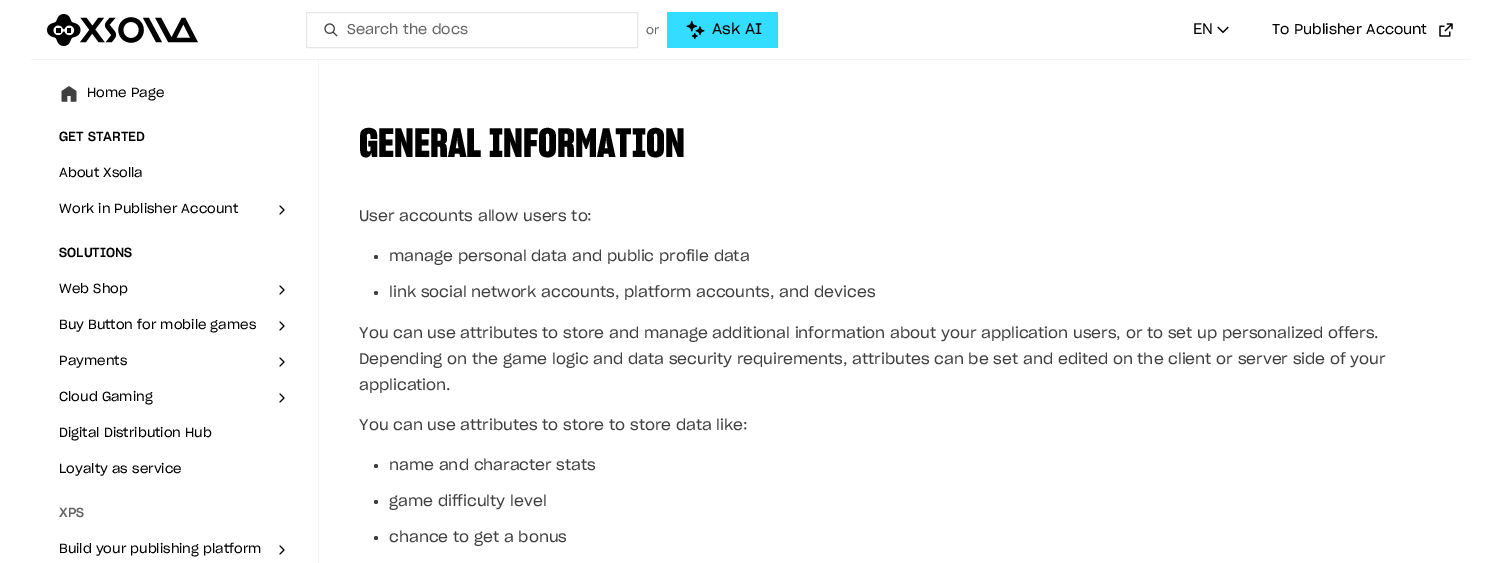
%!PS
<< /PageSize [1502 563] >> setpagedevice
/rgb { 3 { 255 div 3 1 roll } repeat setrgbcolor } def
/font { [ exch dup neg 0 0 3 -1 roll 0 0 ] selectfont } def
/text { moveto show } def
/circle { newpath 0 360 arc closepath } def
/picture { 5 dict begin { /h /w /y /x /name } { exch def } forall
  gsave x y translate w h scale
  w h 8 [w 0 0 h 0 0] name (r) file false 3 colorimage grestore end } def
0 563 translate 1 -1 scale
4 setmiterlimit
255 255 255 rgb
0 0 1502 563 rectfill
243 243 241 rgb
31 59 1440 1 rectfill
(img_01.rgb) 47 14 151 32 picture
230 230 230 rgb
306.5 12.5 331 35 rectstroke
(img_02.rgb) 324 23 14 14 picture
51 221 255 rgb
667 12 111 36 rectfill
(img_03.rgb) 686 21 19 18 picture
(img_04.rgb) 1217 26 12 7 picture
(img_05.rgb) 1439 23 14 14 picture
243 243 241 rgb
318 60 1 503 rectfill
(img_06.rgb) 61 86 16 16 picture
(img_07.rgb) 279 205 6 10 picture
(img_07.rgb) 279 285 6 10 picture
(img_07.rgb) 279 321 6 10 picture
(img_07.rgb) 279 357 6 10 picture
(img_07.rgb) 279 393 6 10 picture
(img_07.rgb) 279 545 6 10 picture
64 64 64 rgb
376 257 2 circle fill
376 293 2 circle fill
376 466 2 circle fill
376 502 2 circle fill
376 538 2 circle fill
/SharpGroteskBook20-Regular 14 font
102 102 102 rgb
(Search the docs) 347 34 text
/SharpGroteskBook20-Regular 12 font
(or) 646 34 text
/SharpGroteskBook20-Regular 15 font
0 0 0 rgb
(Ask AI) 712 34 text
(EN) 1193 34 text
/SharpGroteskBook20-Regular 14 font
(To Publisher Account) 1272 34 text
/SharpGroteskBook20-Regular 13 font
(Home Page) 87 97 text
/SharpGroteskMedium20-Medium 13 font
(GET STARTED) 59 141 text
/SharpGroteskBook20-Regular 13 font
(About Xsolla) 59 177 text
(Work in Publisher Account) 59 213 text
/SharpGroteskMedium20-Medium 13 font
(SOLUTIONS) 59 257 text
/SharpGroteskBook20-Regular 13 font
(Web Shop) 59 293 text
(Buy Button for mobile games) 59 329 text
(Payments) 59 365 text
(Cloud Gaming) 59 401 text
(Digital Distribution Hub) 59 437 text
(Loyalty as service) 59 473 text
/SharpGroteskMedium20-Medium 13 font
102 102 102 rgb
(XPS) 59 517 text
/SharpGroteskBook20-Regular 13 font
0 0 0 rgb
(Build your publishing platform) 59 553 text
/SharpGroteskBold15-Bold 40 font
359 157 moveto -0.1 0 (GENERAL INFORMATION) ashow
/SharpGroteskBook20-Regular 15 font
64 64 64 rgb
(User accounts allow users to:) 359 221 text
(manage personal data and public profile data) 389 261 text
(link social network accounts, platform accounts, and devices) 389 297 text
(You can use attributes to store and manage additional information about your application users, or to set up personalized offers.) 359 338 text
(Depending on the game logic and data security requirements, attributes can be set and edited on the client or server side of your) 359 364 text
(application.) 359 390 text
(You can use attributes to store to store data like:) 359 430 text
(name and character stats) 389 470 text
(game difficulty level) 389 506 text
(chance to get a bonus) 389 542 text
showpage
